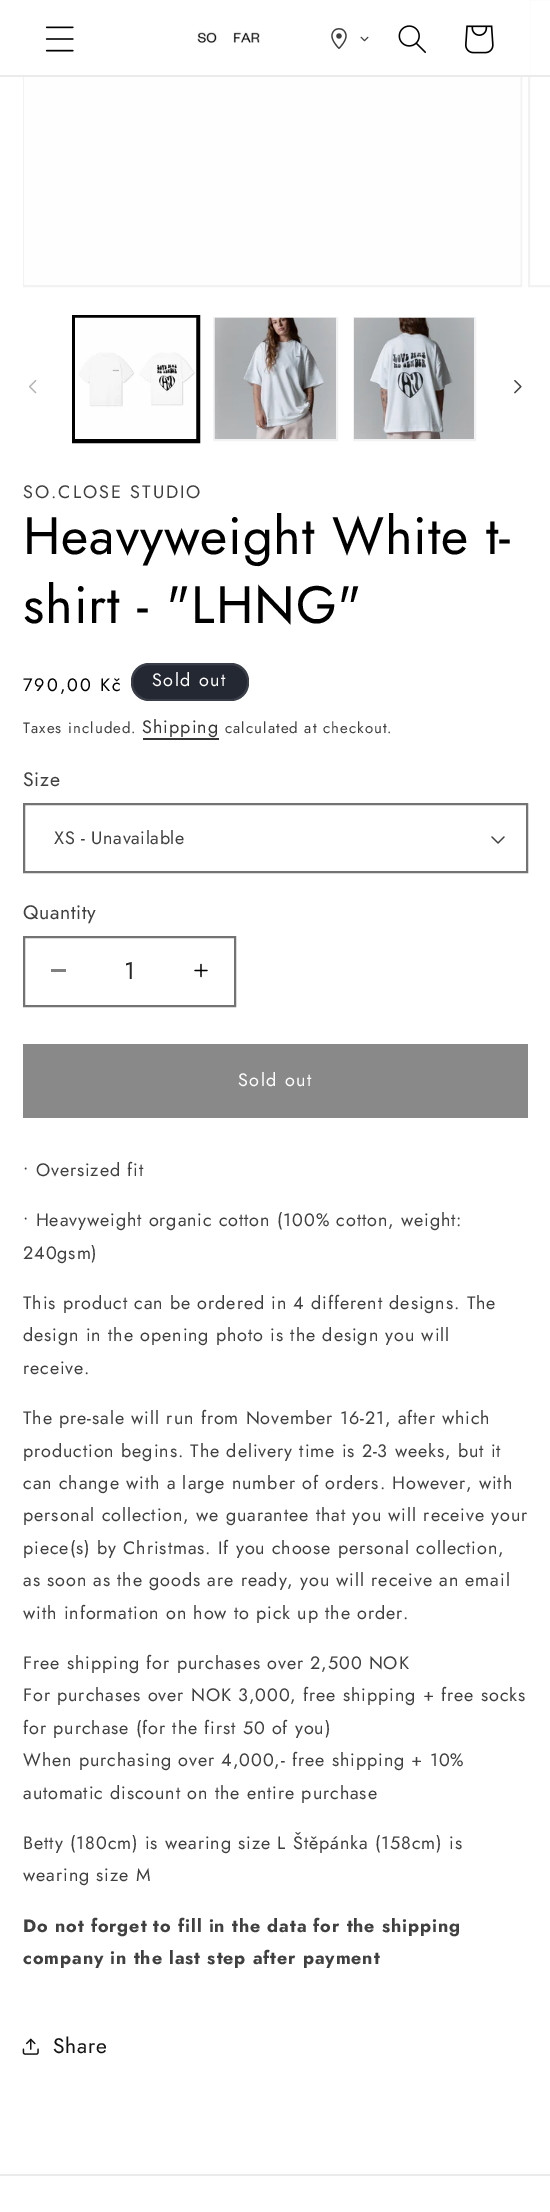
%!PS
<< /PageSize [550 2212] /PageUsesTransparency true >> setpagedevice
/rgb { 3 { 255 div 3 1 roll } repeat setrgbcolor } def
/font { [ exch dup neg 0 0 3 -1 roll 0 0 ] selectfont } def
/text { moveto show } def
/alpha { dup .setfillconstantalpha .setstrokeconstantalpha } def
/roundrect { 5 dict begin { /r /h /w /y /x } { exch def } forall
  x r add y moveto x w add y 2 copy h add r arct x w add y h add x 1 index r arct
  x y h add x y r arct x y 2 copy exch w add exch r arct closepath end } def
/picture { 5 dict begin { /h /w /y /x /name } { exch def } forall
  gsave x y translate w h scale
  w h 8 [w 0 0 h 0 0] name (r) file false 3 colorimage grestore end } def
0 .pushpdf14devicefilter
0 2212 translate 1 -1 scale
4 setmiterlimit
255 255 255 rgb
0 0 550 2212 rectfill
242 242 242 rgb
2 setlinewidth
24 -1 497 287 rectstroke
529 -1 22 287 rectstroke
255 255 255 rgb
23 0 507 75 rectfill
235 235 235 rgb
0 75 550 2 rectfill
(img_01.rgb) 45 26 29 26 picture
(img_02.rgb) 197 31 63 12 picture
(img_03.rgb) 331 28 16 21 picture
(img_04.rgb) 360 36 9 6 picture
(img_05.rgb) 398 25 28 28 picture
(img_06.rgb) 465 25 29 29 picture
(img_07.rgb) 24 77 497 208 picture
(img_08.rgb) 29 380 8 14 picture
0 0 0 rgb
73 316 126 126 rectstroke
75 318 122 122 rectstroke
(img_09.rgb) 75 317 122 122 picture
242 242 242 rgb
214 318 123 122 rectstroke
(img_10.rgb) 214 317 122 122 picture
354 318 121 122 rectstroke
(img_11.rgb) 354 317 120 122 picture
(img_12.rgb) 514 380 8 14 picture
36 40 51 rgb
131 663 118 38 18 roundrect fill
0.1 alpha
255 255 255 rgb
132 664 116 36 17 roundrect stroke
1 alpha
54 54 54 rgb
143 738 76 2 rectfill
(img_13.rgb) 491 836 14 8 picture
115 115 115 rgb
24 804 503 68 rectstroke
128 128 128 rgb
51 969 15 3 rectfill
(img_14.rgb) 194 963 14 15 picture
115 115 115 rgb
24 937 211 69 rectstroke
137 137 137 rgb
23 1044 505 74 rectfill
(img_15.rgb) 22 2038 17 17 picture
235 235 235 rgb
0 2174 550 2 rectfill
/Jost-Regular 18 font
64 64 64 rgb
23 498 moveto 2 0 (SO.CLOSE STUDIO) ashow
/Jost-Regular 52.5 font
0 0 0 rgb
23 554 moveto 0.9 0 (Heavyweight White t-) ashow
23 623 moveto 0.9 0 (shirt - "LHNG") ashow
/Jost-Regular 18 font
23 691 moveto 2 0 (790,00 Kč) ashow
255 255 255 rgb
152 686 moveto 1.5 0 (Sold out) ashow
/Jost-Regular 15 font
64 64 64 rgb
23 733 moveto 1.05 0 (Taxes included.) ashow
/Jost-Regular 18 font
54 54 54 rgb
142 733 moveto 1.05 0 (Shipping) ashow
/Jost-Regular 15 font
64 64 64 rgb
225 733 moveto 1.05 0 (calculated at checkout.) ashow
/Jost-Regular 19.5 font
23 786 moveto 0.6 0 (Size) ashow
/Jost-Regular 18 font
54 844 moveto 0.6 0 (XS - Unavailable) ashow
/Jost-Regular 19.5 font
23 919 moveto 0.6 0 (Quantity) ashow
/Jost-Regular 24 font
38 38 38 rgb
(1) 124 979 text
/Jost-Regular 18 font
255 255 255 rgb
238 1086 moveto 1.5 0 (Sold out) ashow
64 64 64 rgb
23 1176 moveto 0.9 0 (• Oversized fit) ashow
23 1226 moveto 0.9 0 (• Heavyweight organic cotton \(100% cotton, weight:) ashow
23 1259 moveto 0.9 0 (240gsm\)) ashow
23 1309 moveto 0.9 0 (This product can be ordered in 4 different designs. The) ashow
23 1341 moveto 0.9 0 (design in the opening photo is the design you will) ashow
23 1374 moveto 0.9 0 (receive.) ashow
23 1424 moveto 0.9 0 (The pre-sale will run from November 16-21, after which) ashow
23 1457 moveto 0.9 0 (production begins. The delivery time is 2-3 weeks, but it) ashow
23 1489 moveto 0.9 0 (can change with a large number of orders. However, with) ashow
23 1521 moveto 0.9 0 (personal collection, we guarantee that you will receive your) ashow
23 1554 moveto 0.9 0 (piece\(s\) by Christmas. If you choose personal collection,) ashow
23 1586 moveto 0.9 0 (as soon as the goods are ready, you will receive an email) ashow
23 1619 moveto 0.9 0 (with information on how to pick up the order.) ashow
23 1669 moveto 0.9 0 (Free shipping for purchases over 2,500 NOK) ashow
23 1701 moveto 0.9 0 (For purchases over NOK 3,000, free shipping + free socks) ashow
23 1734 moveto 0.9 0 (for purchase \(for the first 50 of you\)) ashow
23 1766 moveto 0.9 0 (When purchasing over 4,000,- free shipping + 10%) ashow
23 1799 moveto 0.9 0 (automatic discount on the entire purchase) ashow
23 1849 moveto 0.9 0 (Betty \(180cm\) is wearing size L Štěpánka \(158cm\) is) ashow
23 1881 moveto 0.9 0 (wearing size M) ashow
/Jost-Bold 18 font
23 1932 moveto 0.9 0 (Do not forget to fill in the data for the shipping) ashow
23 1964 moveto 0.9 0 (company in the last step after payment) ashow
/Jost-Regular 21 font
18 18 18 rgb
53 2053 moveto 0.9 0 (Share) ashow
.poppdf14devicefilter showpage
